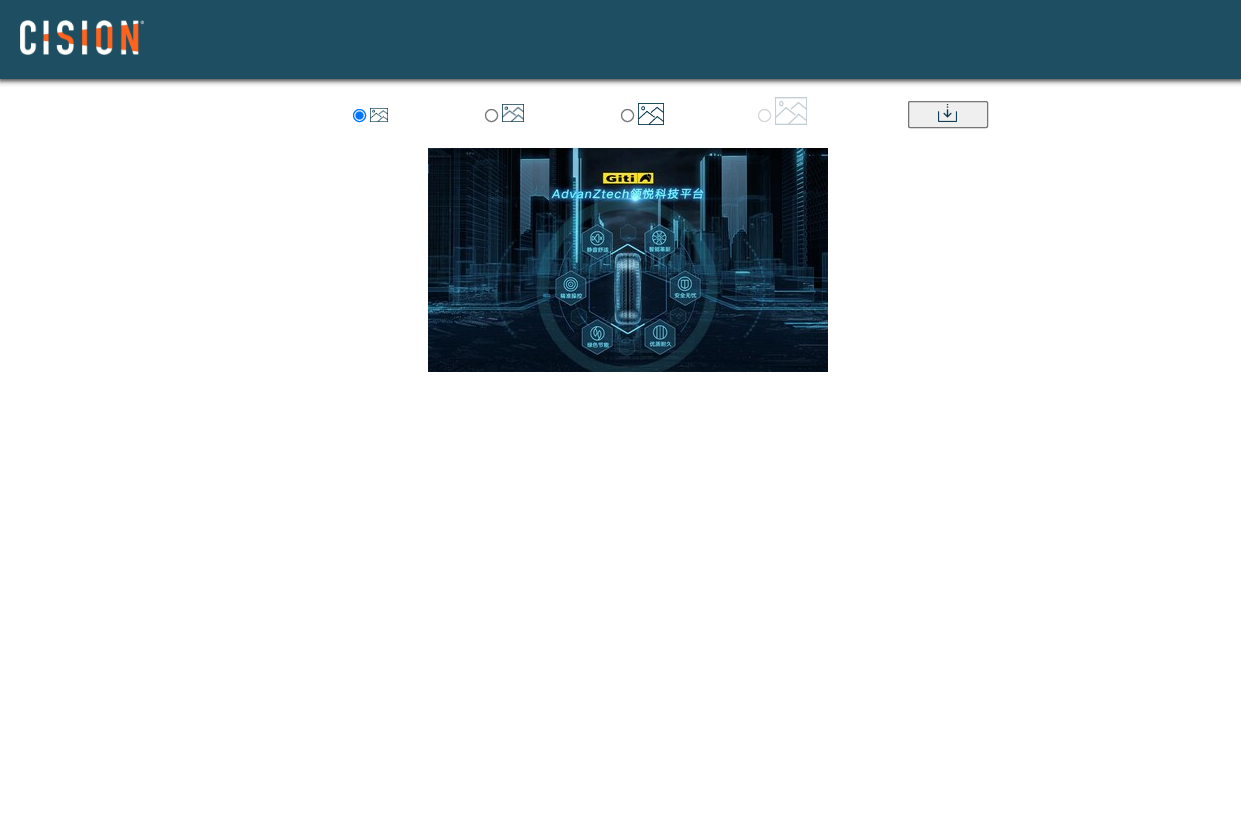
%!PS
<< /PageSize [1241 814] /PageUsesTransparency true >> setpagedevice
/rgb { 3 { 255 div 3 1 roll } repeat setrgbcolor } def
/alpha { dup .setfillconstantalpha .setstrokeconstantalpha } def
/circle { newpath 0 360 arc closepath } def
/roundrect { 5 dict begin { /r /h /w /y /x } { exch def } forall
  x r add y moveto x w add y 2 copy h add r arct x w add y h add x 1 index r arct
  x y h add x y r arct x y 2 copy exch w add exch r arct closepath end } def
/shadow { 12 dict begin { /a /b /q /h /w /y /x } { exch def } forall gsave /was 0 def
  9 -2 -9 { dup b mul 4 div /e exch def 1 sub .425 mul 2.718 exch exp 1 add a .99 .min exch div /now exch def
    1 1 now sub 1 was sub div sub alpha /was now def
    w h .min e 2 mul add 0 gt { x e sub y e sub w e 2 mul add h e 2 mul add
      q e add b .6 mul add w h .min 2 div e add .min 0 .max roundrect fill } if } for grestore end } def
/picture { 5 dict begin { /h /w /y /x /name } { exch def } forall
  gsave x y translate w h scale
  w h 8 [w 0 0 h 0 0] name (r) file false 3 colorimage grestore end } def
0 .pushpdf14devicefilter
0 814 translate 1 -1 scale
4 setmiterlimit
255 255 255 rgb
0 0 1241 814 rectfill
0 0 0 rgb
0 2 1241 79 0 2.5 0.75 shadow
30 78 97 rgb
0 0 1241 79 rectfill
(img_01.rgb) 20 20 124 35 picture
0 117 255 rgb
359.5 115.5 6 circle stroke
359.5 115.5 4 circle fill
(img_02.rgb) 370 108 18 14 picture
118 118 118 rgb
491.5 115.5 6 circle stroke
(img_03.rgb) 502 104 22 18 picture
627.5 115.5 6 circle stroke
(img_04.rgb) 638 103 26 22 picture
214 214 214 rgb
764.5 115.5 6 circle stroke
(img_05.rgb) 775 97 32 28 picture
239 239 239 rgb
908.5 101.5 79 26 1.5 roundrect gsave fill grestore
118 118 118 rgb
stroke
(img_06.rgb) 938 104 19 18 picture
(img_07.rgb) 428 148 400 224 picture
.poppdf14devicefilter showpage
